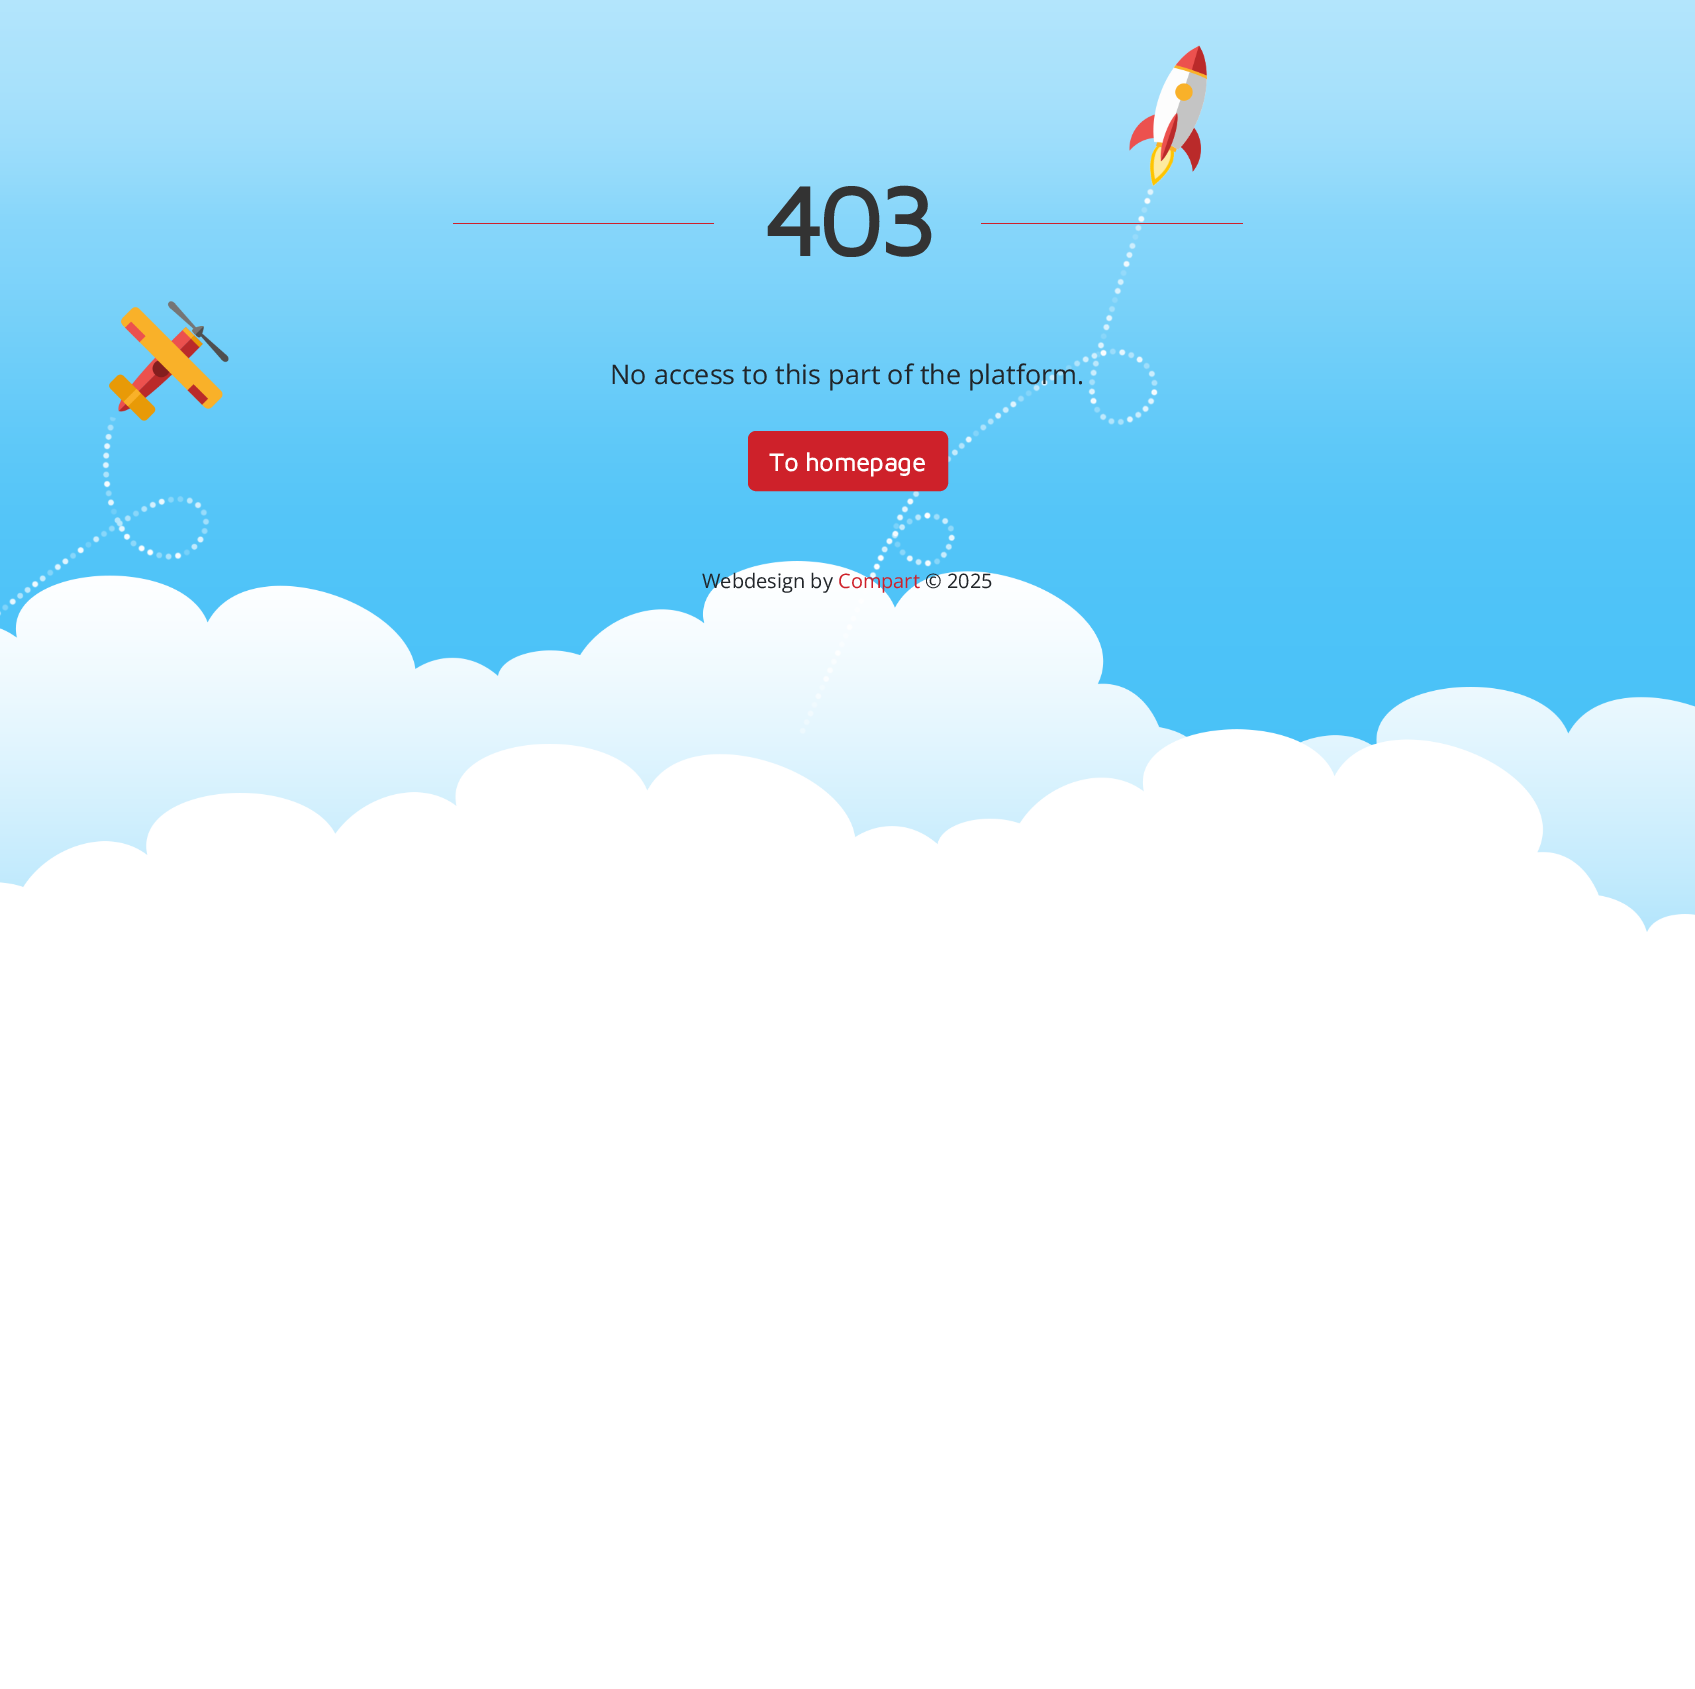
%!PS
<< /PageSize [1695 1689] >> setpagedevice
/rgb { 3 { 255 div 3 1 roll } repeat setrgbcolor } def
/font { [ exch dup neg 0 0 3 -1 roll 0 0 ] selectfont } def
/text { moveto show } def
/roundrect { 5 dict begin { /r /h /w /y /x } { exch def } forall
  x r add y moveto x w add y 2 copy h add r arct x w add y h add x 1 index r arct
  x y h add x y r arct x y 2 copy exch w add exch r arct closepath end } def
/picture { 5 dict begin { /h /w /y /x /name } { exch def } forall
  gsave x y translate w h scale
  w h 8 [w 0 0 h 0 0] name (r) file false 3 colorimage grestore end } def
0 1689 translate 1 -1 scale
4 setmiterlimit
255 255 255 rgb
0 0 1695 1689 rectfill
(img_01.rgb) 0 0 1695 932 picture
206 33 42 rgb
453 223 261 1 rectfill
981 223 262 1 rectfill
748.5 431.5 199 59 7.5 roundrect gsave fill grestore
stroke
/MavenPro-Bold 100 font
51 51 51 rgb
764 256 moveto -5 0 (403) ashow
/OpenSans-Regular 27 font
33 37 41 rgb
(No access to this part of the platform.) 610 384 text
/MavenPro-Bold 25 font
255 255 255 rgb
(To homepage) 769 471 text
/OpenSans-Regular 20 font
33 37 41 rgb
(Webdesign by) 702 588 text
206 33 42 rgb
(Compart) 838 588 text
33 37 41 rgb
(© 2025) 925 588 text
showpage
